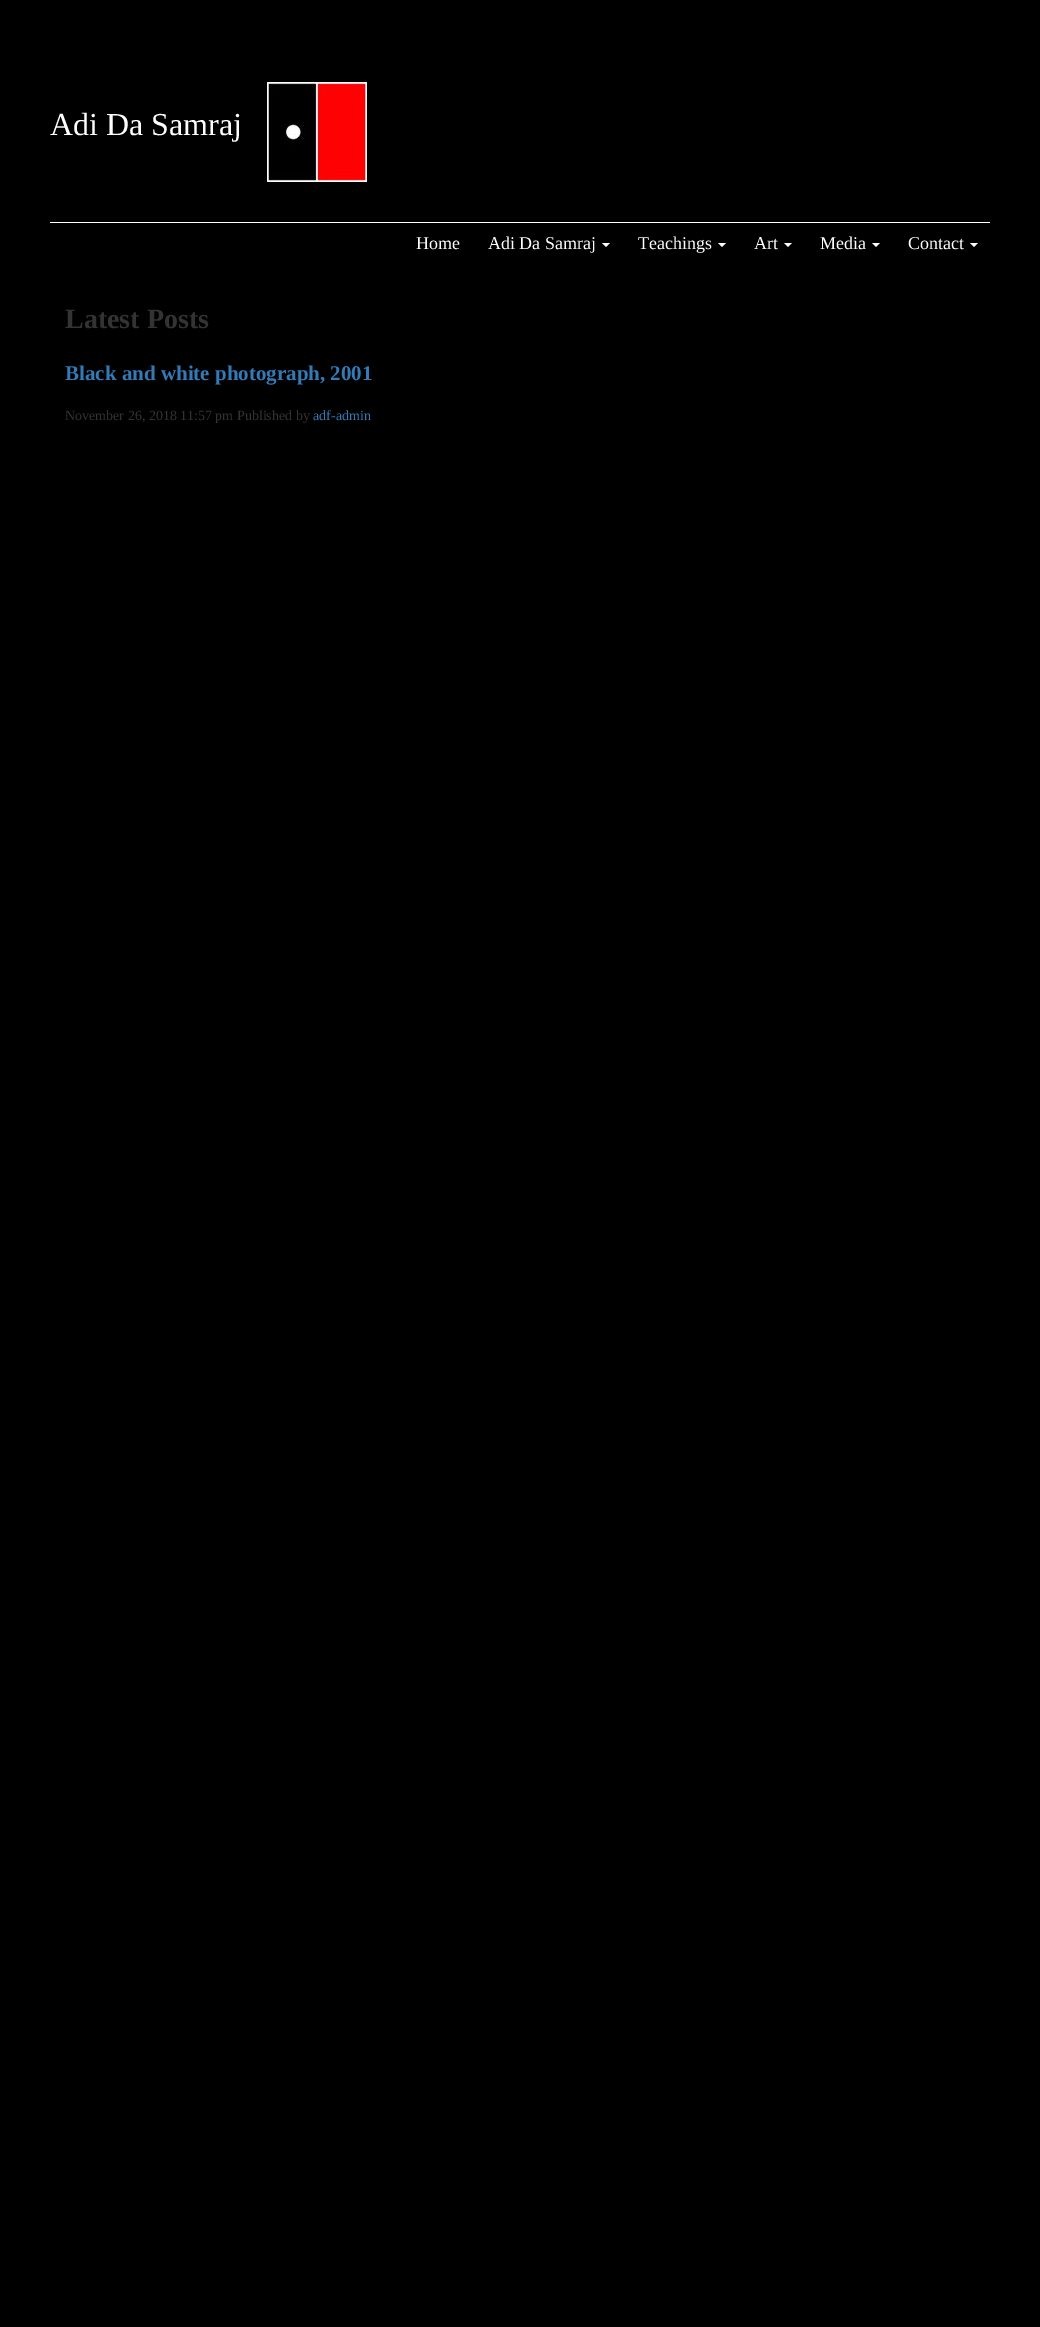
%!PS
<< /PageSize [1040 2327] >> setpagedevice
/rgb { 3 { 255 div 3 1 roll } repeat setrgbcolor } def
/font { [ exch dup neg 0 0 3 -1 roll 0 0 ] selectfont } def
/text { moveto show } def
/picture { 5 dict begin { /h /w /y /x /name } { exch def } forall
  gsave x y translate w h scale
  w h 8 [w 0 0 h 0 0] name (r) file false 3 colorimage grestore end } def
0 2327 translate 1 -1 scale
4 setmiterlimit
0 0 0 rgb
0 0 1040 2327 rectfill
(img_01.rgb) 267 82 100 100 picture
255 255 255 rgb
50 222 940 1 rectfill
602 243 moveto 8 0 rlineto -4 4 rlineto closepath fill
718 243 moveto 8 0 rlineto -4 4 rlineto closepath fill
784 243 moveto 8 0 rlineto -4 4 rlineto closepath fill
872 243 moveto 8 0 rlineto -4 4 rlineto closepath fill
970 243 moveto 8 0 rlineto -4 4 rlineto closepath fill
/LiberationSerif-Regular 32 font
(Adi Da Samraj) 50 135 text
/LiberationSerif-Regular 18 font
(Home) 416 249 text
(Adi Da Samraj) 488 249 text
(Teachings) 638 249 text
(Art) 754 249 text
(Media) 820 249 text
(Contact) 908 249 text
/LiberationSerif-Bold 28 font
51 51 51 rgb
(Latest Posts) 65 328 text
/LiberationSerif-Bold 21 font
51 122 183 rgb
(Black and white photograph, 2001) 65 380 text
/LiberationSerif-Regular 14 font
51 51 51 rgb
(November 26, 2018 11:57 pm Published by) 65 420 text
51 122 183 rgb
(adf-admin) 313 420 text
showpage
